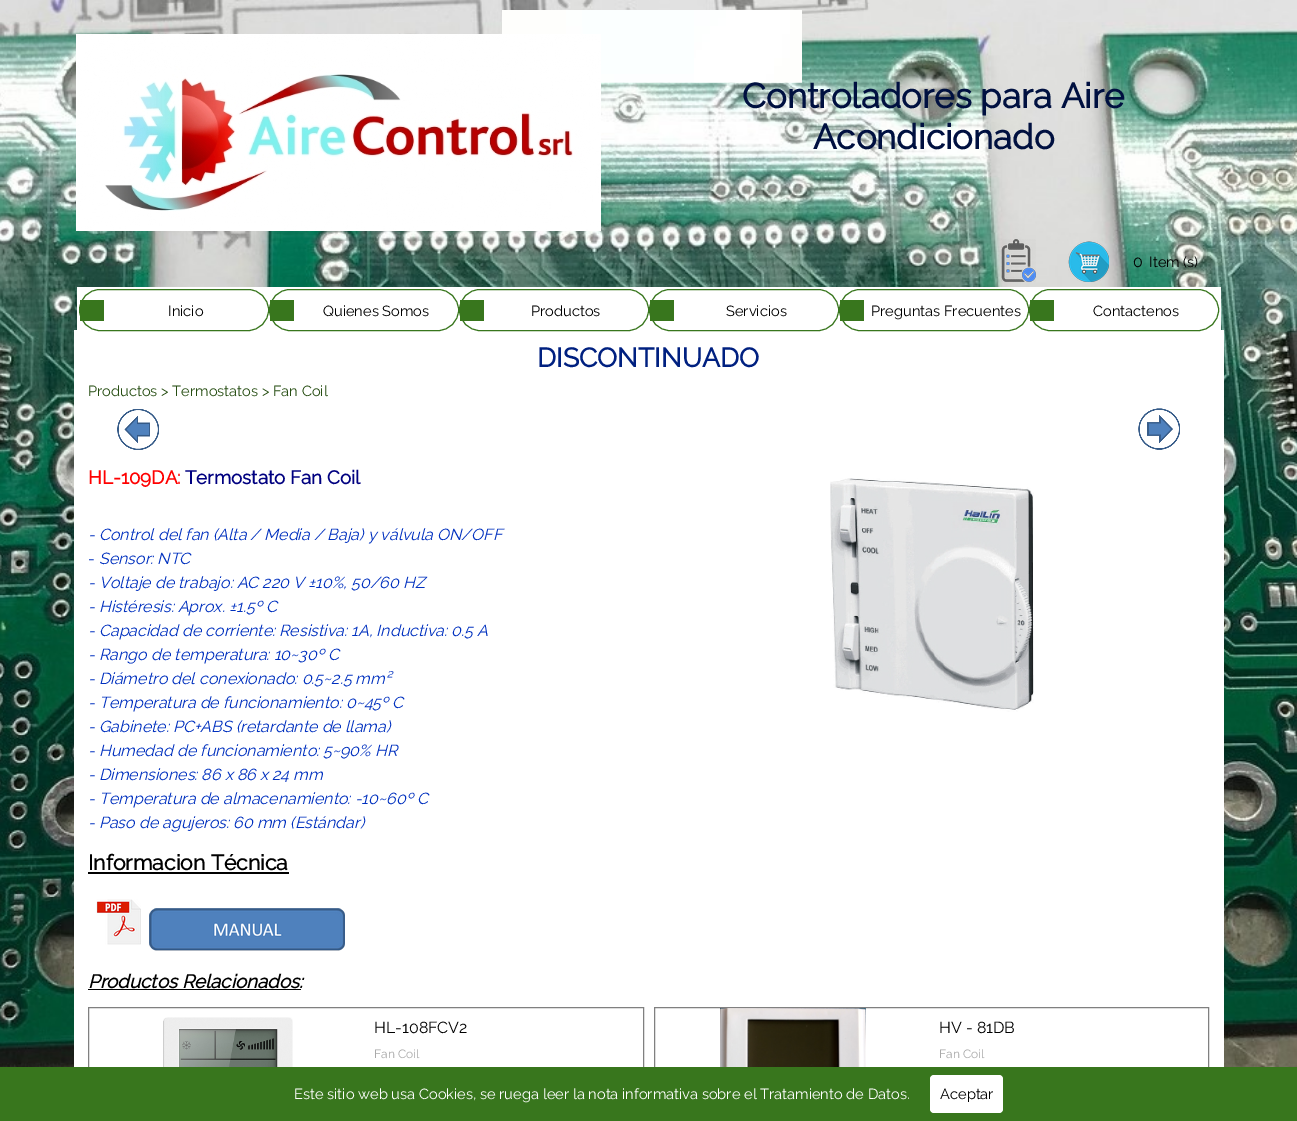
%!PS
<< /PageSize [1297 1121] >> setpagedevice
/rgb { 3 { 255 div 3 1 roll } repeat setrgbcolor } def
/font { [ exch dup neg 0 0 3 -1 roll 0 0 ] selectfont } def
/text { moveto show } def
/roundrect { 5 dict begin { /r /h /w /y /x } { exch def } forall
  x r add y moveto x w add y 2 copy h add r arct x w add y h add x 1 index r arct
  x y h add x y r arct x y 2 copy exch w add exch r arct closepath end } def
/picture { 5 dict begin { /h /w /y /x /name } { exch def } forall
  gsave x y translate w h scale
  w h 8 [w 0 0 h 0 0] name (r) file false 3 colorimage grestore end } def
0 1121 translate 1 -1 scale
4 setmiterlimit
255 255 255 rgb
0 0 1297 1121 rectfill
(img_01.rgb) 0 0 1297 1067 picture
(img_03.rgb) 502 10 300 73 picture
(img_02.rgb) 76 34 525 197 picture
(img_04.rgb) 1001 239 35 43 picture
(img_05.rgb) 1068 241 41 41 picture
77 287 1144 43 rectfill
74 330 1150 737 rectfill
56 118 29 rgb
79.5 289.5 189 41 20.5 roundrect stroke
80 300 24 21 rectfill
269.5 289.5 189 41 20.5 roundrect stroke
270 300 24 21 rectfill
459.5 289.5 189 41 20.5 roundrect stroke
460 300 24 21 rectfill
649.5 289.5 189 41 20.5 roundrect stroke
650 300 24 21 rectfill
839.5 289.5 189 41 20.5 roundrect stroke
840 300 24 21 rectfill
1029.5 289.5 189 41 20.5 roundrect stroke
1030 300 24 21 rectfill
(img_06.rgb) 117 409 42 41 picture
(img_07.rgb) 1138 408 42 42 picture
(img_08.rgb) 830 478 204 234 picture
0 0 0 rgb
88 872 201 2 rectfill
(img_09.rgb) 96 899 45 46 picture
(img_10.rgb) 149 908 196 43 picture
88 989 213 1 rectfill
128 128 128 rgb
88.5 1007.5 555 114 rectstroke
(img_11.rgb) 163 1017 130 50 picture
654.5 1007.5 554 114 rectstroke
(img_12.rgb) 720 1008 146 59 picture
56 118 29 rgb
0 1067 1297 54 rectfill
255 255 255 rgb
930 1075 73 38 4 roundrect fill
/Raleway-Bold 34.75 font
0 16 64 rgb
(Controladores para Aire) 742 108 text
(Acondicionado) 813 149 text
/Raleway-Thin 16 font
0 0 0 rgb
(0) 1133 267 text
/Raleway-Thin 14.65 font
(Item \(s\)) 1149 267 text
(Inicio) 168 316 text
(Quienes Somos) 323 316 text
(Productos) 531 316 text
(Servicios) 726 316 text
(Preguntas Frecuentes) 871 316 text
(Contactenos) 1093 316 text
/Raleway-Bold 26.75 font
0 32 128 rgb
(DISCONTINUADO) 537 367 text
/Raleway-Thin 14.65 font
39 78 19 rgb
(Productos > Termostatos > Fan Coil) 88 396 text
/Raleway-Bold 18.75 font
255 0 0 rgb
(HL-109DA:) 88 484 text
0 0 128 rgb
(Termostato Fan Coil) 185 484 text
/Raleway-ThinItalic 16 font
0 48 191 rgb
(- Control del fan \(Alta / Media / Baja\) y válvula ON/OFF) 88 540 text
/Raleway-Thin 16 font
(-) 88 564 text
/Raleway-ThinItalic 16 font
(Sensor: NTC) 99 564 text
(- Voltaje de trabajo: AC 220 V ±10%, 50/60 HZ) 88 588 text
(- Histéresis: Aprox. ±1.5º C) 88 612 text
(- Capacidad de corriente: Resistiva: 1A, Inductiva: 0.5 A) 88 636 text
(- Rango de temperatura: 10~30º C) 88 660 text
(- Diámetro del conexionado: 0.5~2.5 mm²) 88 684 text
(- Temperatura de funcionamiento: 0~45º C) 88 708 text
(- Gabinete: PC+ABS \(retardante de llama\)) 88 732 text
(- Humedad de funcionamiento: 5~90% HR) 88 756 text
(- Dimensiones: 86 x 86 x 24 mm) 88 780 text
(- Temperatura de almacenamiento: -10~60º C) 88 804 text
(- Paso de agujeros: 60 mm \(Estándar\)) 88 828 text
/Raleway-Bold 21.25 font
0 0 0 rgb
(Informacion Técnica) 88 870 text
/Raleway-BoldItalic 18.75 font
(Productos Relacionados:) 88 988 text
/Raleway-Thin 16 font
(HL-108FCV2) 374 1033 text
/Raleway-Thin 12 font
169 169 169 rgb
(Fan Coil) 374 1058 text
/Raleway-Thin 16 font
0 0 0 rgb
(HV - 81DB) 939 1033 text
/Raleway-Thin 12 font
169 169 169 rgb
(Fan Coil) 939 1058 text
/Raleway-Thin 14.65 font
255 255 255 rgb
(Este sitio web usa Cookies, se ruega leer la nota informativa sobre el Tratamiento de Datos.) 294 1099 text
0 0 0 rgb
(Aceptar) 940 1099 text
showpage
